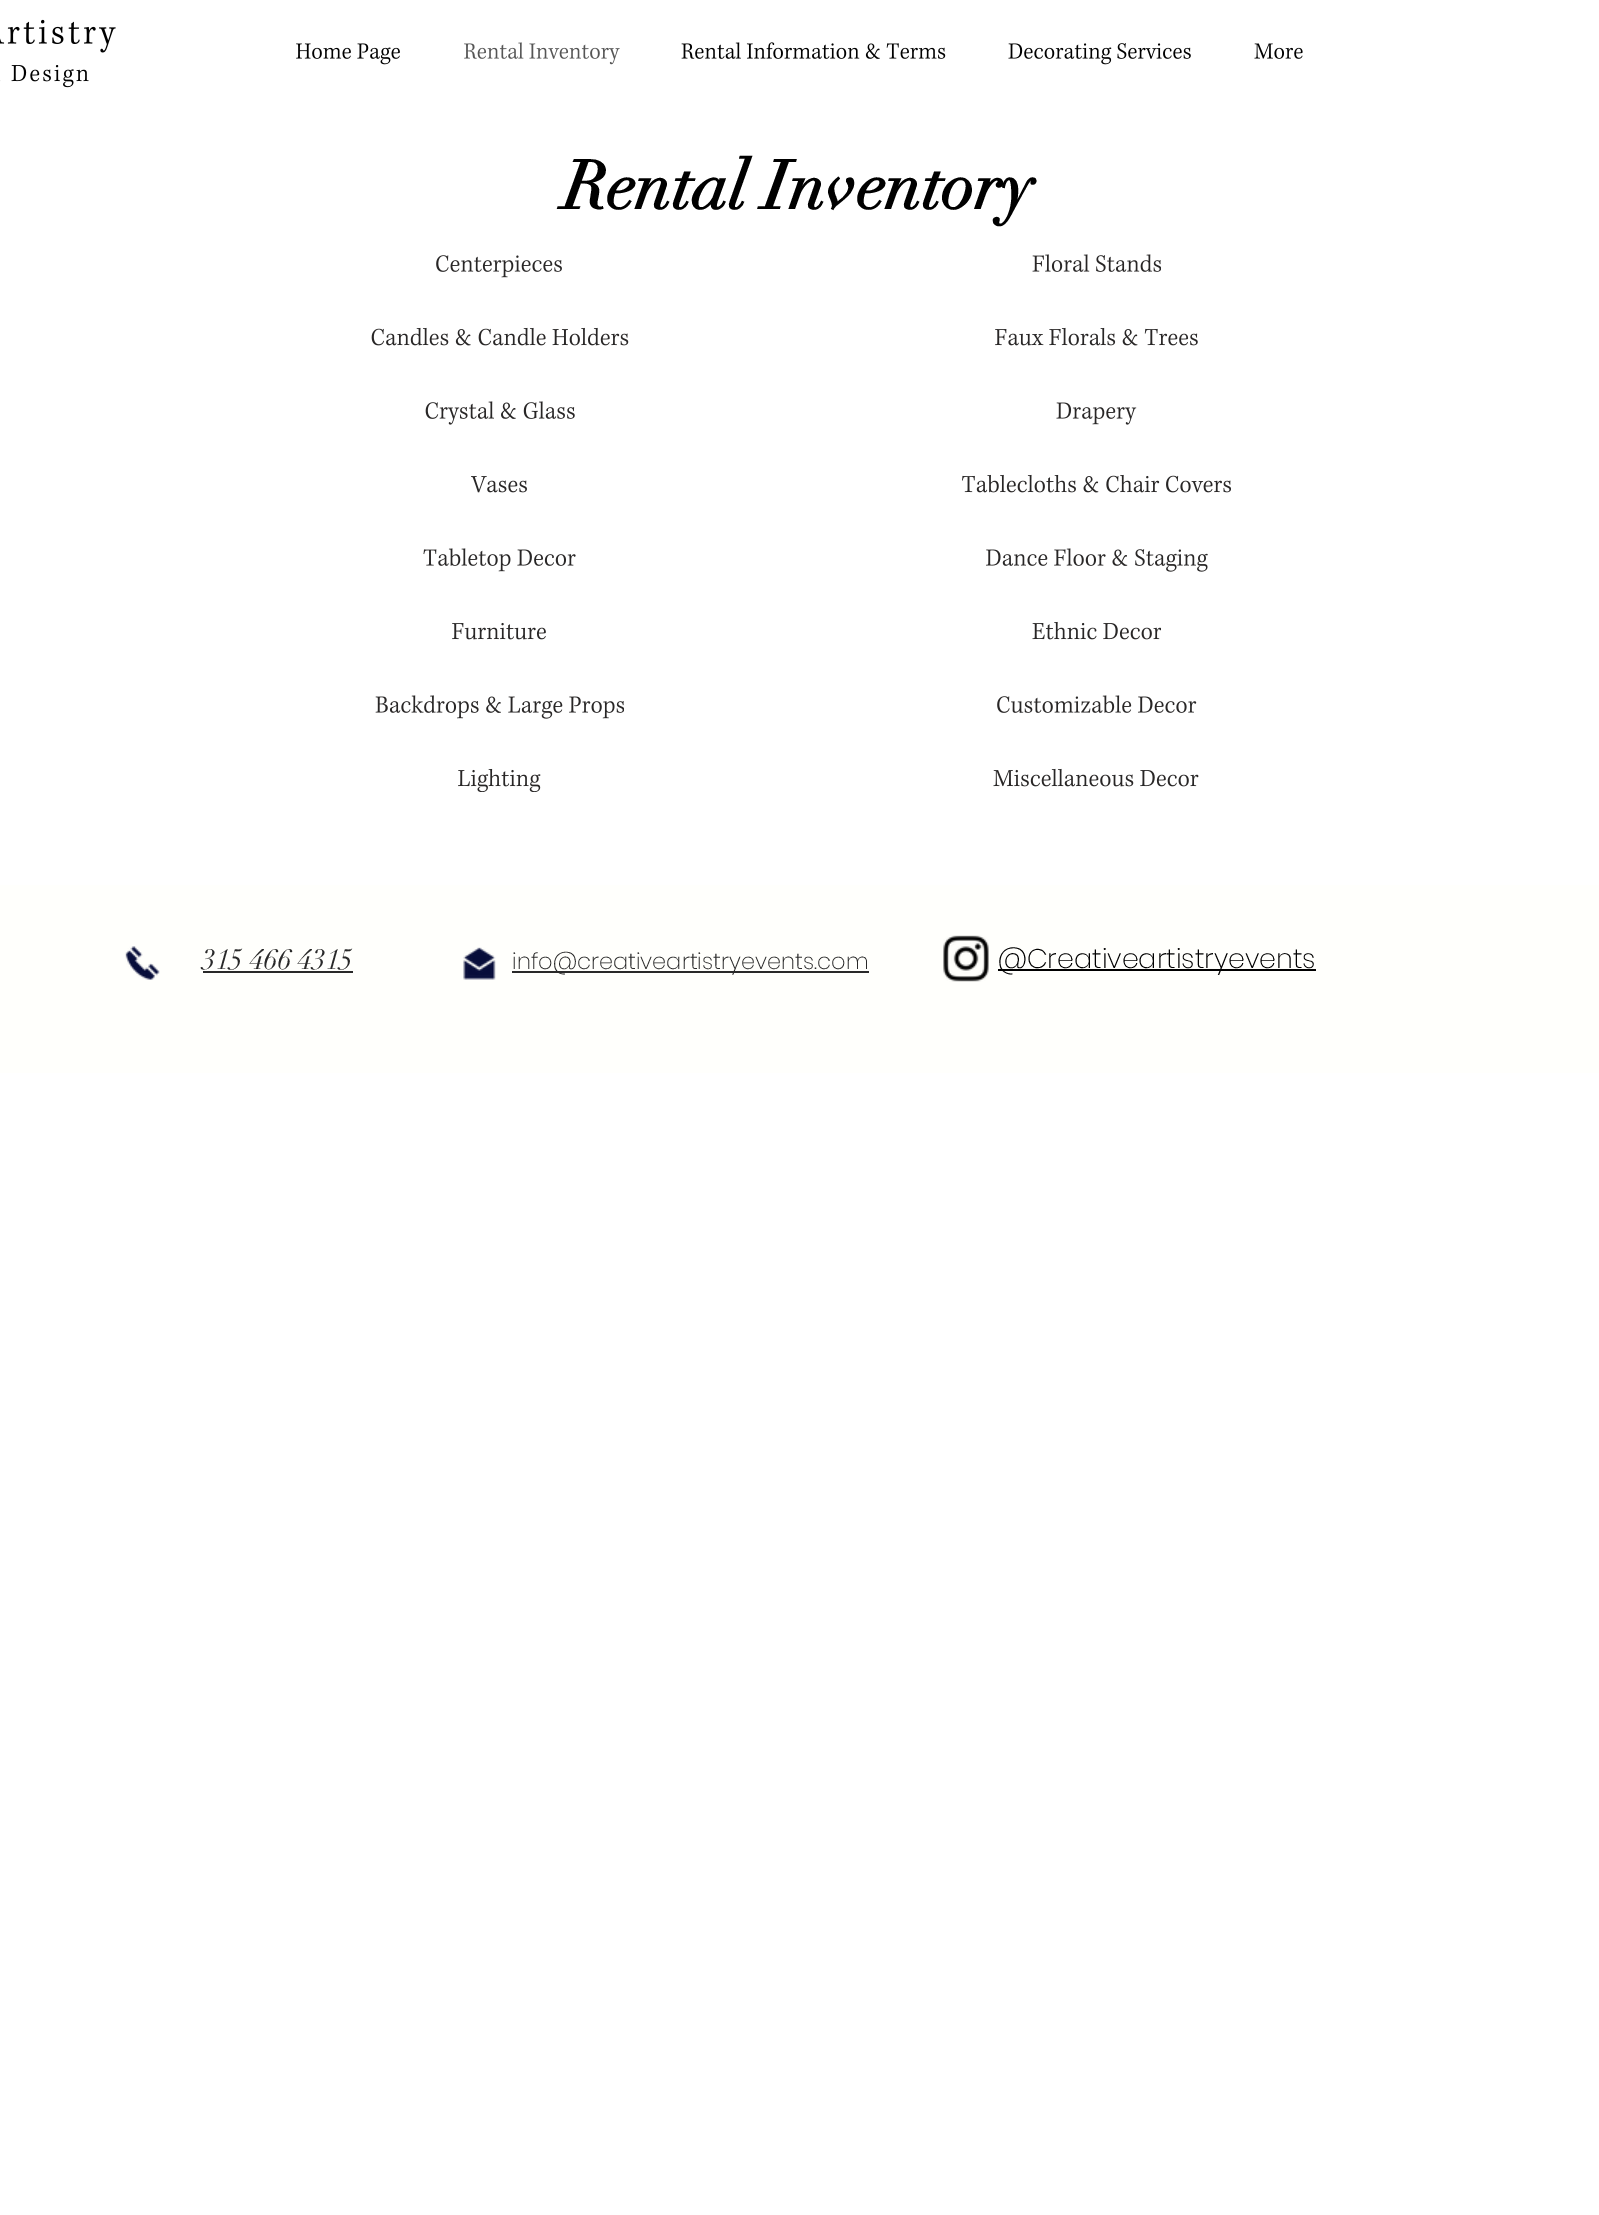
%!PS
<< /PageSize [1599 2215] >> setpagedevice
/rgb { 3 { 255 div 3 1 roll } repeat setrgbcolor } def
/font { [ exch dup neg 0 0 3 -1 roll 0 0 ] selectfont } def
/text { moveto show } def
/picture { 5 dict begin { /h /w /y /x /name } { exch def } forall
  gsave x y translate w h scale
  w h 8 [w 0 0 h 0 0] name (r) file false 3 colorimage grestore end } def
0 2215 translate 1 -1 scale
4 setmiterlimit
255 255 255 rgb
0 0 1599 2215 rectfill
(img_01.rgb) 0 19 116 34 picture
(img_02.rgb) 0 65 89 23 picture
(img_03.rgb) 296 43 104 22 picture
(img_04.rgb) 464 42 156 23 picture
(img_05.rgb) 681 42 265 17 picture
(img_06.rgb) 1008 43 183 22 picture
(img_07.rgb) 1254 43 49 16 picture
(img_08.rgb) 436 255 126 23 picture
(img_09.rgb) 1032 254 129 18 picture
(img_10.rgb) 371 327 258 19 picture
(img_11.rgb) 995 327 203 19 picture
(img_12.rgb) 425 401 150 24 picture
(img_13.rgb) 1056 402 81 23 picture
(img_14.rgb) 471 476 56 17 picture
(img_15.rgb) 962 474 269 19 picture
(img_16.rgb) 423 548 153 24 picture
(img_17.rgb) 986 548 222 24 picture
(img_18.rgb) 452 622 94 18 picture
(img_19.rgb) 1032 621 129 19 picture
(img_20.rgb) 375 695 249 24 picture
(img_21.rgb) 997 695 200 18 picture
(img_22.rgb) 458 768 83 24 picture
(img_23.rgb) 993 768 206 19 picture
255 255 252 rgb
0 885 1599 188 rectfill
(img_24.rgb) 125 946 35 34 picture
41 41 41 rgb
203 971 150 2 rectfill
(img_25.rgb) 463 947 33 33 picture
512 971 357 2 rectfill
(img_26.rgb) 943 935 46 47 picture
0 0 0 rgb
998 969 318 2 rectfill
/didot-Bold 67.5 font
(Rental Inventory) 563 209 text
/didot-Regular 28.5 font
41 41 41 rgb
(315 466 4315) 202 969 text
/Poppins-ExtraLight 22.5 font
(info@creativeartistryevents.com) 512 969 text
/Poppins-ExtraLight 27 font
0 0 0 rgb
(@Creativeartistryevents) 998 968 text
showpage
